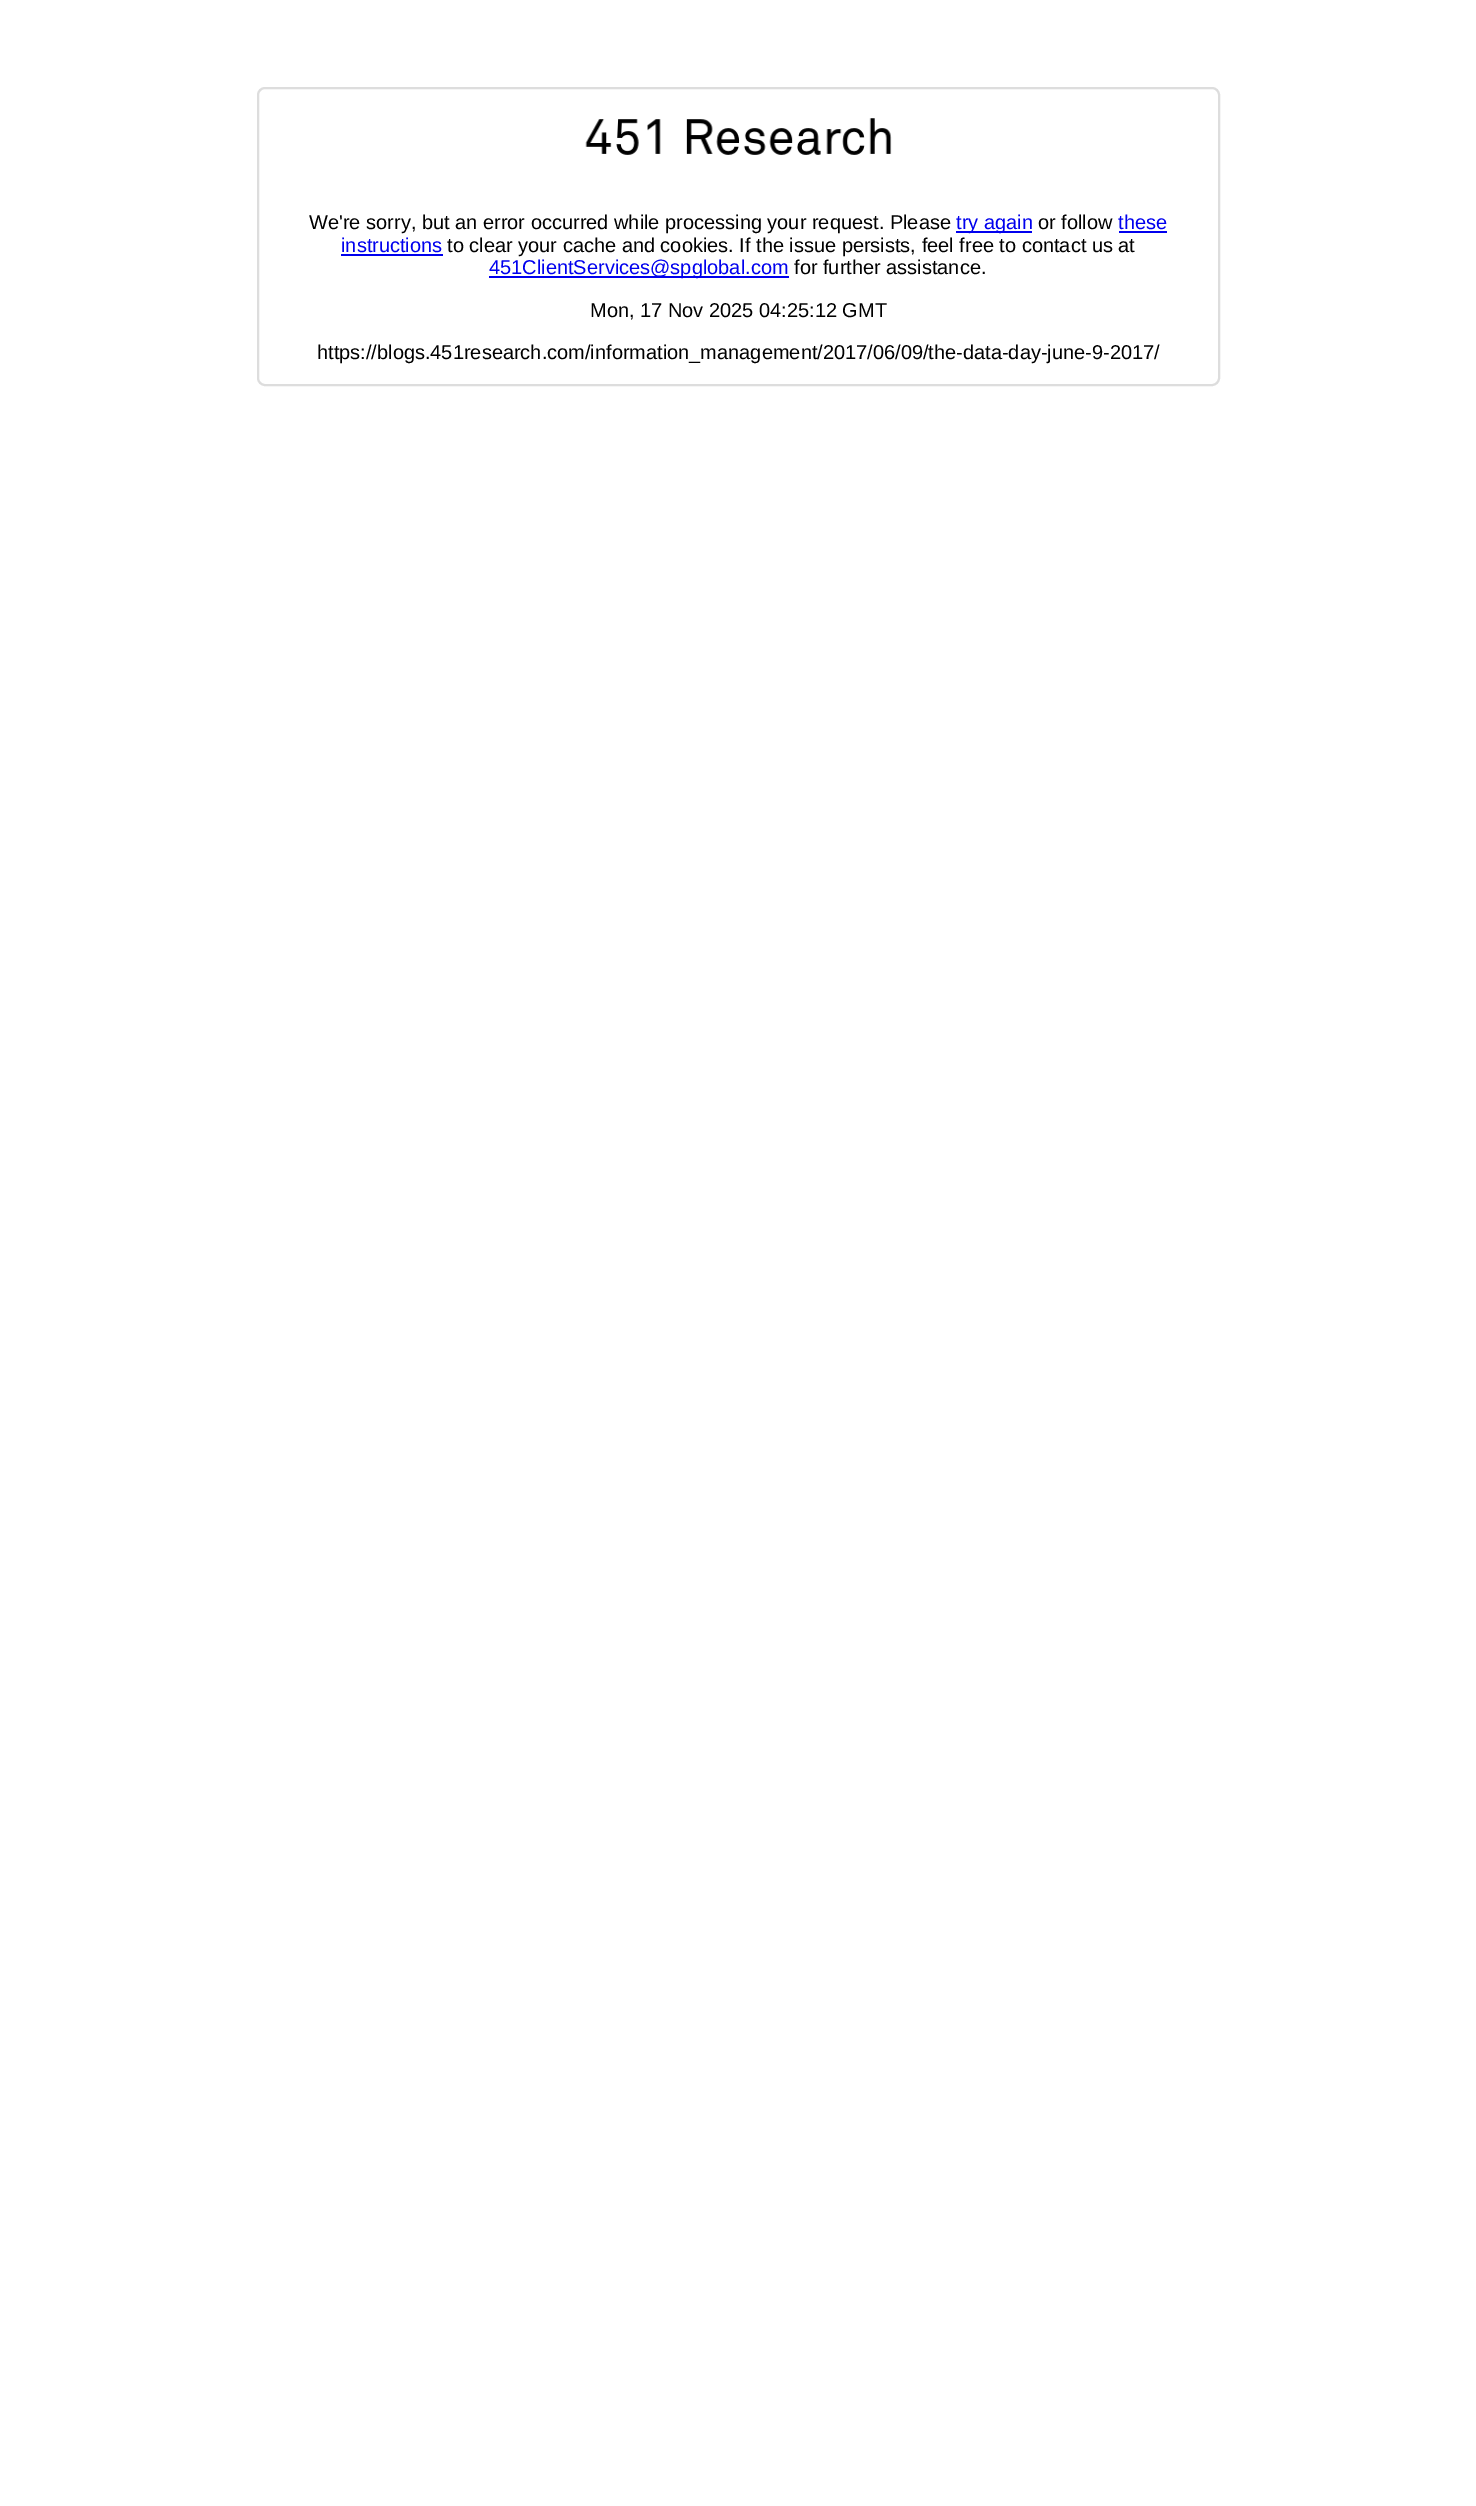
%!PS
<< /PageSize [1476 2506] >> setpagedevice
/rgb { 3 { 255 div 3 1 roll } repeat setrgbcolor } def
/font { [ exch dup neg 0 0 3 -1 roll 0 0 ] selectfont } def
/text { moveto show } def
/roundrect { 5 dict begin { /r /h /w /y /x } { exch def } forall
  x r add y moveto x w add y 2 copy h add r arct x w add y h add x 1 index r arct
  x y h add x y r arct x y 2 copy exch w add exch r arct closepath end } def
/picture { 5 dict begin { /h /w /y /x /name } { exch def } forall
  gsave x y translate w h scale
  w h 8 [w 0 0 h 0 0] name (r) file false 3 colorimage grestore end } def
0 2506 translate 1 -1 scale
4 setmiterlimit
255 255 255 rgb
0 0 1476 2506 rectfill
221 221 221 rgb
2 setlinewidth
258 88 961 297 7 roundrect stroke
(img_01.rgb) 585 118 307 37 picture
0 0 238 rgb
956 231 76 2 rectfill
1119 231 48 2 rectfill
341 254 102 2 rectfill
489 276 300 2 rectfill
/LiberationSans-Regular 20 font
0 0 0 rgb
(We're sorry, but an error occurred while processing your request. Please) 309 229 text
0 0 238 rgb
(try again) 956 229 text
0 0 0 rgb
(or follow) 1038 229 text
0 0 238 rgb
(these) 1118 229 text
(instructions) 341 252 text
0 0 0 rgb
(to clear your cache and cookies. If the issue persists, feel free to contact us at) 447 252 text
0 0 238 rgb
(451ClientServices@spglobal.com) 489 274 text
0 0 0 rgb
(for further assistance.) 794 274 text
(Mon, 17 Nov 2025 04:25:12 GMT) 590 317 text
(https://blogs.451research.com/information_management/2017/06/09/the-data-day-june-9-2017/) 317 359 text
showpage
